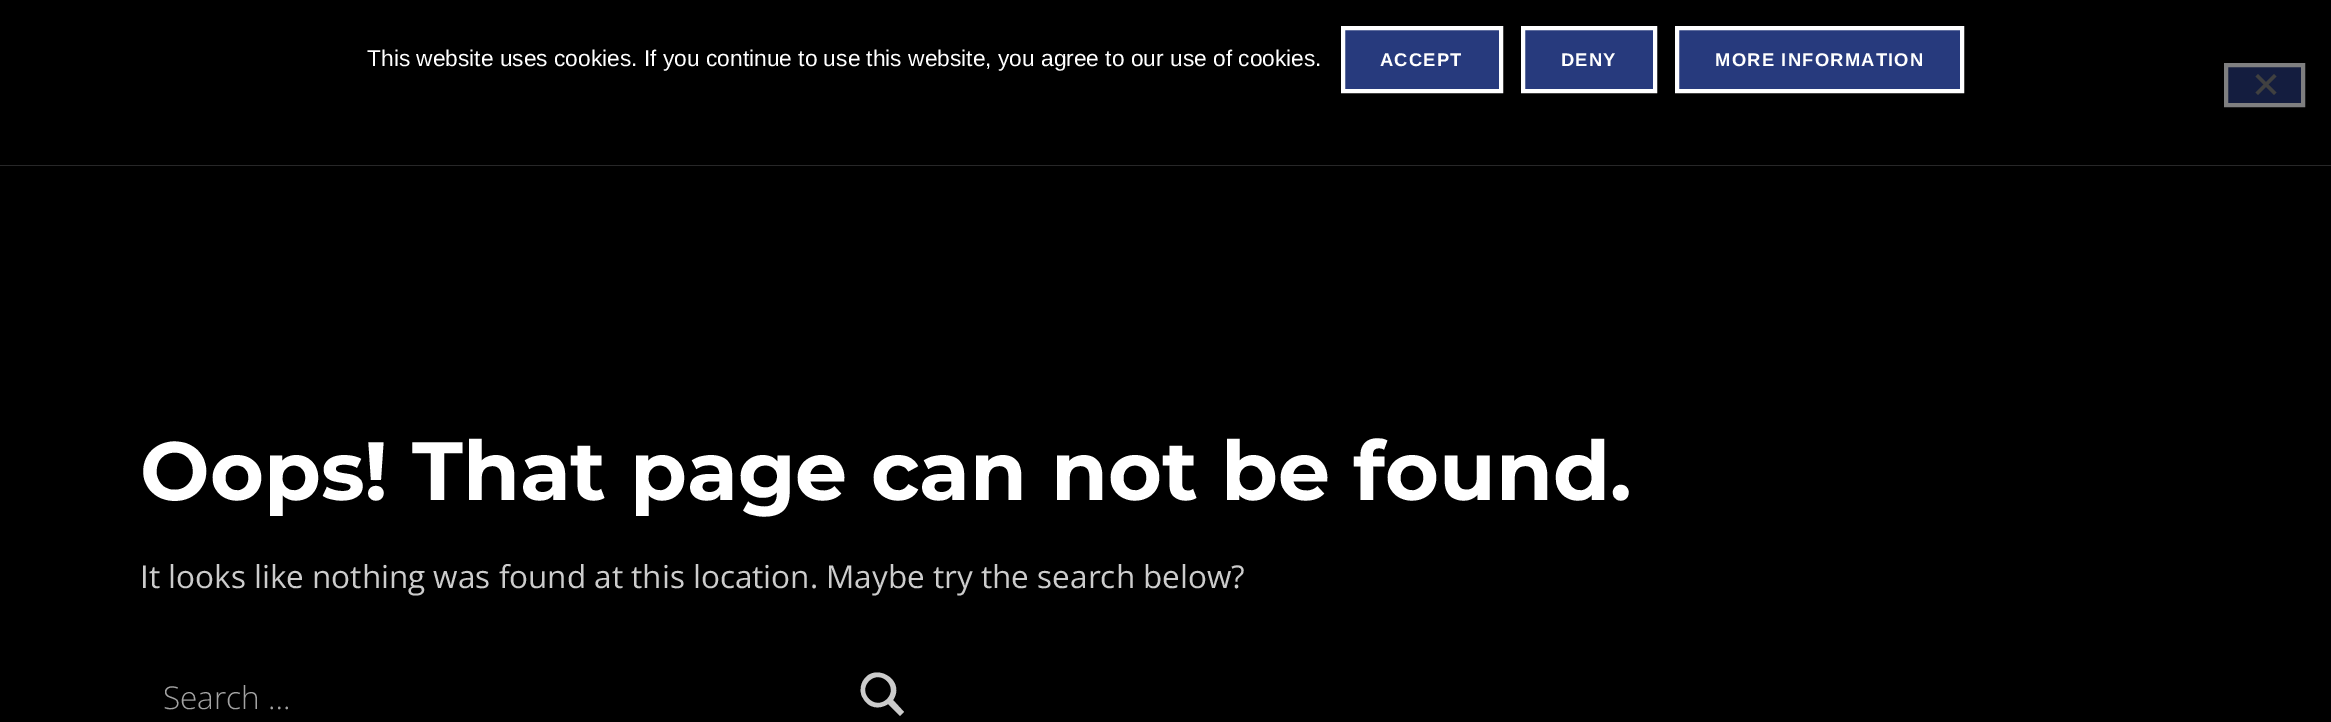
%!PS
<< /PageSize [2331 722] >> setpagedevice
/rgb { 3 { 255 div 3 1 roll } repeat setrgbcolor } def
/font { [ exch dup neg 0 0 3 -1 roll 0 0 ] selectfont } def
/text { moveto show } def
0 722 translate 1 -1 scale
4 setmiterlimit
0 0 0 rgb
0 0 2331 722 rectfill
39 58 125 rgb
1343 28 moveto 158 0 rlineto 0 63 rlineto -158 0 rlineto closepath gsave fill grestore
254 254 255 rgb
4 setlinewidth
stroke
39 58 125 rgb
1523 28 moveto 132 0 rlineto 0 63 rlineto -132 0 rlineto closepath gsave fill grestore
254 254 255 rgb
stroke
39 58 125 rgb
1677 28 moveto 285 0 rlineto 0 63 rlineto -285 0 rlineto closepath gsave fill grestore
254 254 255 rgb
stroke
20 29 63 rgb
2226 65 moveto 77 0 rlineto 0 40 rlineto -77 0 rlineto closepath gsave fill grestore
127 127 128 rgb
stroke
64 64 64 rgb
2274 74 moveto 2.5 2.5 rlineto -18.5 18.5 rlineto -2.5 -2.5 rlineto closepath fill
2255.5 76.5 moveto 2.5 -2.5 rlineto 18.5 18.5 rlineto -2.5 2.5 rlineto closepath fill
39 39 40 rgb
0 165 2331 1 rectfill
204 204 204 rgb
904 712 moveto -4 4 rlineto -12 -12 rlineto -9 6 -20 4 -25 -6 rcurveto -3 -4 -3 -10 -1 -15 rcurveto 10 -23 45 -4 31 17 rcurveto closepath 869 681 moveto -12 12 6 30 18 18 rcurveto 12 -12 -6 -30 -18 -18 rcurveto closepath fill
/LiberationSans-Regular 22.75 font
255 255 255 rgb
(This website uses cookies. If you continue to use this website, you agree to our use of cookies.) 367 66 text
/LiberationSans-Bold 18.4 font
1380 66 moveto 1.2 0 (ACCEPT) ashow
1561 66 moveto 1.2 0 (DENY) ashow
1715 66 moveto 1.2 0 (MORE INFORMATION) ashow
/Montserrat-Bold 82.5 font
(Oops! That page can not be found.) 140 500 text
/OpenSans-Regular 31.5 font
204 204 204 rgb
(It looks like nothing was found at this location. Maybe try the search below?) 140 588 text
/OpenSans-Light 31.5 font
163 163 163 rgb
(Search …) 163 709 text
showpage
